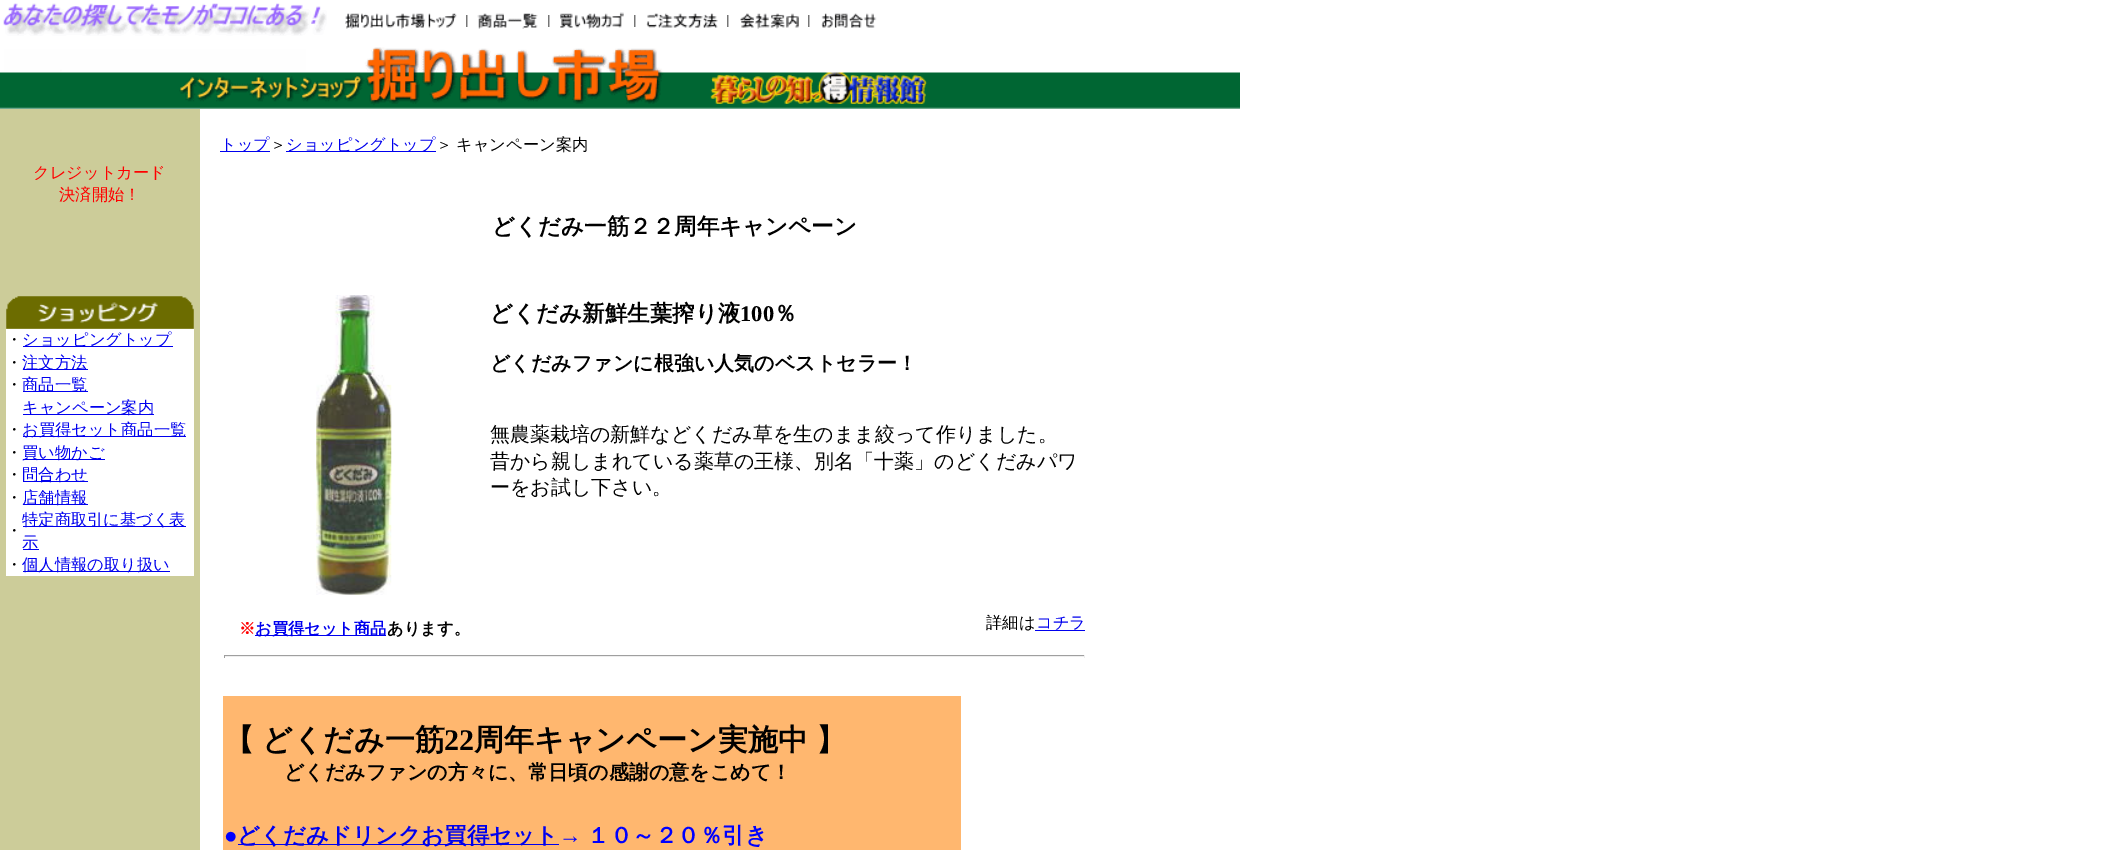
%!PS
<< /PageSize [2127 850] >> setpagedevice
/rgb { 3 { 255 div 3 1 roll } repeat setrgbcolor } def
/font { [ exch dup neg 0 0 3 -1 roll 0 0 ] selectfont } def
/text { moveto show } def
/picture { 5 dict begin { /h /w /y /x /name } { exch def } forall
  gsave x y translate w h scale
  w h 8 [w 0 0 h 0 0] name (r) file false 3 colorimage grestore end } def
0 850 translate 1 -1 scale
4 setmiterlimit
255 255 255 rgb
0 0 2127 850 rectfill
(img_01.rgb) 3 3 324 33 picture
(img_02.rgb) 345 13 112 16 picture
(img_03.rgb) 477 13 61 16 picture
(img_04.rgb) 560 12 64 17 picture
(img_05.rgb) 646 13 72 15 picture
(img_06.rgb) 740 13 59 16 picture
(img_07.rgb) 821 13 56 15 picture
(img_08.rgb) 0 47 1240 62 picture
204 204 153 rgb
0 109 200 741 rectfill
(img_09.rgb) 6 296 188 33 picture
255 255 255 rgb
6 329 188 22 rectfill
0 0 238 rgb
23 346 150 1 rectfill
255 255 255 rgb
6 351 188 23 rectfill
0 0 238 rgb
23 369 65 1 rectfill
255 255 255 rgb
6 374 188 22 rectfill
0 0 238 rgb
23 391 65 1 rectfill
255 255 255 rgb
6 396 188 23 rectfill
0 0 238 rgb
23 414 131 1 rectfill
255 255 255 rgb
6 419 188 22 rectfill
0 0 238 rgb
23 436 163 1 rectfill
255 255 255 rgb
6 441 188 23 rectfill
0 0 238 rgb
23 459 82 1 rectfill
255 255 255 rgb
6 464 188 22 rectfill
0 0 238 rgb
23 481 65 1 rectfill
255 255 255 rgb
6 486 188 23 rectfill
0 0 238 rgb
23 504 65 1 rectfill
255 255 255 rgb
6 509 188 45 rectfill
0 0 238 rgb
23 526 163 1 rectfill
23 549 16 1 rectfill
255 255 255 rgb
6 554 188 22 rectfill
0 0 238 rgb
23 571 147 1 rectfill
220 151 50 1 rectfill
286 151 150 1 rectfill
(img_10.rgb) 316 295 76 300 picture
255 635 131 1 rectfill
1035 630 50 1 rectfill
159 159 159 rgb
224 655 861 1 rectfill
238 238 238 rgb
1084 655 1 3 rectfill
224 656 861 1 rectfill
159 159 159 rgb
224 655 1 3 rectfill
255 183 111 rgb
223 696 738 154 rectfill
0 0 238 rgb
238 844 321 1 rectfill
/WenQuanYiZenHei-Medium 12 font
0 0 0 rgb
(｜) 461 24 text
(｜) 543 24 text
(｜) 629 24 text
(｜) 722 24 text
(｜) 803 24 text
/WenQuanYiZenHei-Medium 16.25 font
255 0 0 rgb
(クレジットカード) 33 178 text
(決済開始！) 59 200 text
0 0 0 rgb
(・) 6 345 text
0 0 238 rgb
(ショッピングトップ) 22 345 text
0 0 0 rgb
(・) 6 368 text
0 0 238 rgb
(注文方法) 22 368 text
0 0 0 rgb
(・) 6 390 text
0 0 238 rgb
(商品一覧) 22 390 text
(キャンペーン案内) 22 413 text
0 0 0 rgb
(・) 6 435 text
0 0 238 rgb
(お買得セット商品一覧) 22 435 text
0 0 0 rgb
(・) 6 458 text
0 0 238 rgb
(買い物かご) 22 458 text
0 0 0 rgb
(・) 6 480 text
0 0 238 rgb
(問合わせ) 22 480 text
0 0 0 rgb
(・) 6 503 text
0 0 238 rgb
(店舗情報) 22 503 text
0 0 0 rgb
(・) 6 536 text
0 0 238 rgb
(特定商取引に基づく表) 22 525 text
(示) 22 548 text
0 0 0 rgb
(・) 6 570 text
0 0 238 rgb
(個人情報の取り扱い) 22 570 text
(トップ) 220 150 text
0 0 0 rgb
(＞) 270 150 text
0 0 238 rgb
(ショッピングトップ) 286 150 text
0 0 0 rgb
436 150 moveto -1 0 32 (＞ キャンペーン案内) widthshow
/WenQuanYiZenHei-Bold 22.5 font
(どくだみ一筋２２周年キャンペーン) 492 234 text
(どくだみ新鮮生葉搾り液) 490 321 text
/LiberationSerif-Bold 22.5 font
(100) 740 321 text
/WenQuanYiZenHei-Bold 22.5 font
(％) 774 321 text
/WenQuanYiZenHei-Bold 20 font
(どくだみファンに根強い人気のベストセラー！) 490 370 text
/WenQuanYiZenHei-Medium 20 font
(無農薬栽培の新鮮などくだみ草を生のまま絞って作りました。) 490 441 text
(昔から親しまれている薬草の王様、別名「十薬」のどくだみパワ) 490 468 text
(ーをお試し下さい。) 490 494 text
/WenQuanYiZenHei-Bold 16.25 font
255 0 0 rgb
(※) 239 634 text
0 0 238 rgb
(お買得セット商品) 255 634 text
0 0 0 rgb
(あります。) 387 634 text
/WenQuanYiZenHei-Medium 16.25 font
(詳細は) 986 628 text
0 0 238 rgb
(コチラ) 1036 628 text
/WenQuanYiZenHei-Bold 30 font
0 0 0 rgb
224 750 moveto -1 0 32 (【 どくだみ一筋) widthshow
/LiberationSerif-Bold 30 font
(22) 444 750 text
/WenQuanYiZenHei-Bold 30 font
474 750 moveto -1 0 32 (周年キャンペーン実施中 】) widthshow
/WenQuanYiZenHei-Bold 20 font
(どくだみファンの方々に、常日頃の感謝の意をこめて！) 284 779 text
/LiberationSerif-Bold 22.5 font
0 0 255 rgb
(●) 224 843 text
/WenQuanYiZenHei-Bold 22.5 font
0 0 238 rgb
(どくだみドリンクお買得セット) 237 843 text
/LiberationSerif-Bold 22.5 font
0 0 255 rgb
(→) 559 843 text
/WenQuanYiZenHei-Bold 22.5 font
(１０～２０％引き) 587 843 text
showpage
